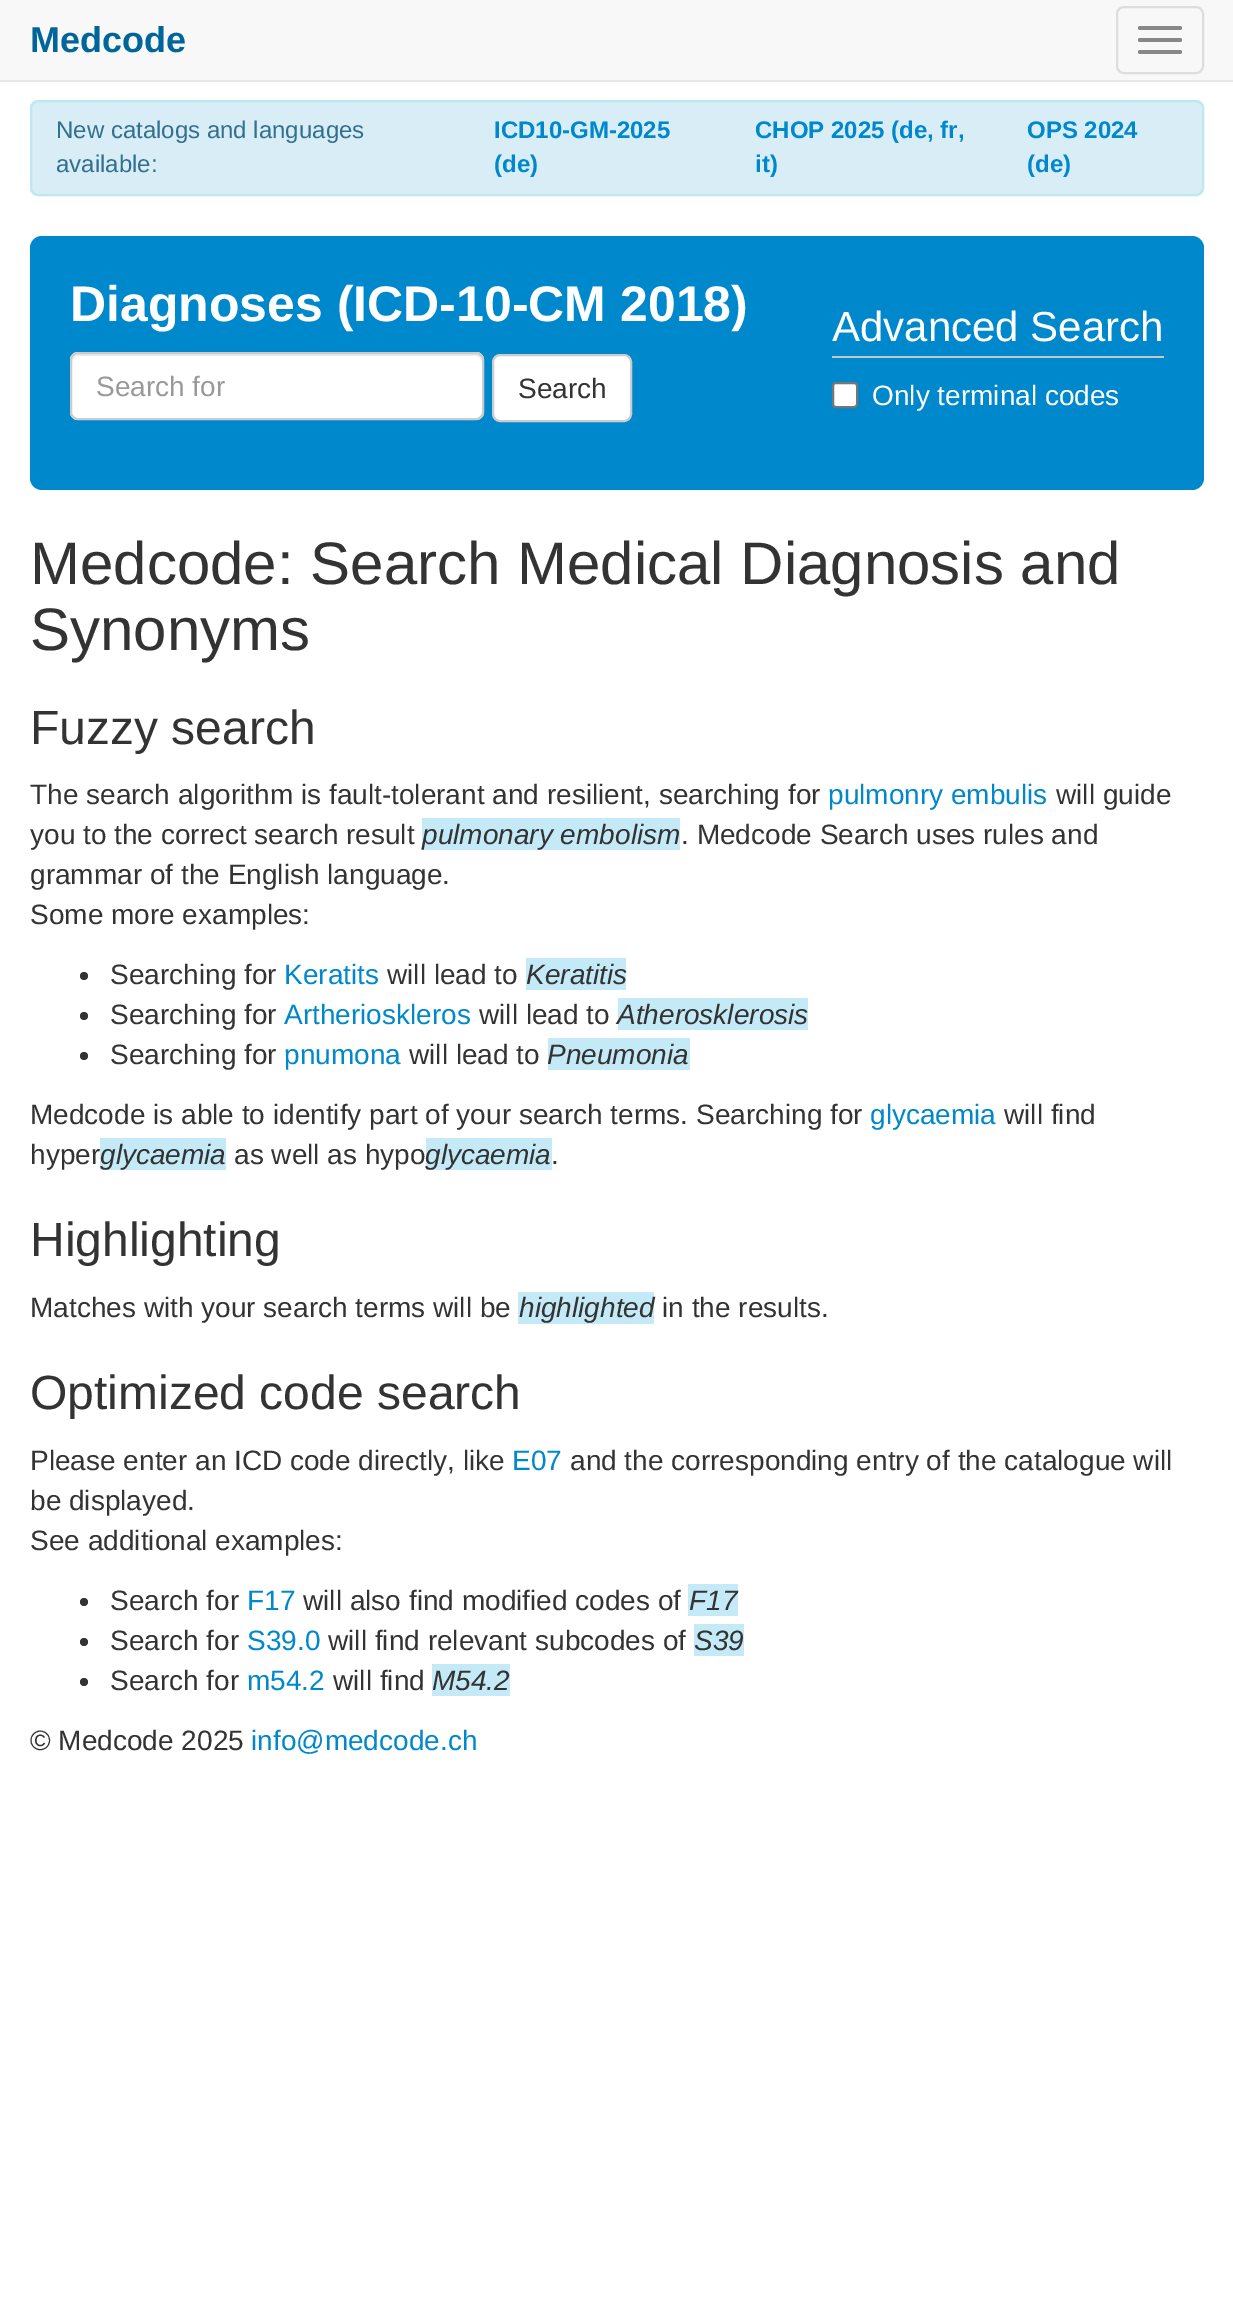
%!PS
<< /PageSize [1233 2314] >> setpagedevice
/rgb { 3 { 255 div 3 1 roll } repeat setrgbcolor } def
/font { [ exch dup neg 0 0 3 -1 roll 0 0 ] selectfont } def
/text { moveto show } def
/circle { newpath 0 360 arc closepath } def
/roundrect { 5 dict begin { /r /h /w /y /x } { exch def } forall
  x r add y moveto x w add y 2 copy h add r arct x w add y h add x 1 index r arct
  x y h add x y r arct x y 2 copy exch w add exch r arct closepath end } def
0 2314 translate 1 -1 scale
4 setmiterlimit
255 255 255 rgb
0 0 1233 2314 rectfill
248 248 248 rgb
0 0 1233 80 rectfill
231 231 231 rgb
0 80 1233 2 rectfill
221 221 221 rgb
2 setlinewidth
1117 7 86 66 7 roundrect stroke
136 136 136 rgb
1138 26 44 4 2 roundrect fill
1138 38 44 4 2 roundrect fill
1138 50 44 4 2 roundrect fill
217 237 247 rgb
31 101 1172 94 7 roundrect gsave fill grestore
188 232 241 rgb
stroke
0 136 204 rgb
30 236 1174 254 12 roundrect fill
255 255 255 rgb
70 352 414 68 8 roundrect fill
236 236 236 rgb
78 356 moveto 398 0 rlineto 3 0 6 3 6 6 rcurveto 0 -4 -1 -8 -6 -8 rcurveto -398 0 rlineto -5 0 -6 4 -6 8 rcurveto 0 -3 3 -6 6 -6 rcurveto closepath fill
204 204 204 rgb
71 353 412 66 7 roundrect stroke
255 255 255 rgb
493 355 138 66 7 roundrect gsave fill grestore
204 204 204 rgb
stroke
198 198 198 rgb
832 356 332 2 rectfill
255 255 255 rgb
833 383 24 24 3 roundrect gsave fill grestore
118 118 118 rgb
stroke
197 234 247 rgb
422 818 258 32 rectfill
51 51 51 rgb
84 976 4 circle fill
197 234 247 rgb
526 958 100 32 rectfill
51 51 51 rgb
84 1016 4 circle fill
197 234 247 rgb
618 998 190 32 rectfill
51 51 51 rgb
84 1056 4 circle fill
197 234 247 rgb
548 1038 142 32 rectfill
100 1138 126 32 rectfill
426 1138 126 32 rectfill
518 1292 136 32 rectfill
51 51 51 rgb
84 1602 4 circle fill
197 234 247 rgb
688 1584 50 32 rectfill
51 51 51 rgb
84 1642 4 circle fill
197 234 247 rgb
694 1624 50 32 rectfill
51 51 51 rgb
84 1682 4 circle fill
197 234 247 rgb
432 1664 78 32 rectfill
/LiberationSans-Bold 36 font
0 102 153 rgb
(Medcode) 30 52 text
/LiberationSans-Regular 24 font
49 112 143 rgb
(New catalogs and languages) 56 138 text
(available:) 56 172 text
/LiberationSans-Bold 24 font
0 136 204 rgb
(ICD10-GM-2025) 494 138 text
(\(de\)) 494 172 text
(CHOP 2025 \(de, fr,) 755 138 text
(it\)) 755 172 text
(OPS 2024) 1027 138 text
(\(de\)) 1027 172 text
/LiberationSans-Bold 50 font
255 255 255 rgb
(Diagnoses \(ICD-10-CM 2018\)) 70 321 text
/LiberationSans-Regular 28 font
153 153 153 rgb
(Search for) 96 396 text
51 51 51 rgb
(Search) 518 398 text
/LiberationSans-Regular 42 font
255 255 255 rgb
(Advanced Search) 832 341 text
/LiberationSans-Regular 28 font
(Only terminal codes) 872 405 text
/LiberationSans-Regular 60 font
51 51 51 rgb
(Medcode: Search Medical Diagnosis and) 30 584 text
(Synonyms) 30 650 text
/LiberationSans-Regular 48 font
(Fuzzy search) 30 744 text
/LiberationSans-Regular 28 font
(The search algorithm is fault-tolerant and resilient, searching for) 30 804 text
0 136 204 rgb
(pulmonry embulis) 828 804 text
51 51 51 rgb
(will guide) 1056 804 text
(you to the correct search result) 30 844 text
/LiberationSans-Italic 28 font
(pulmonary embolism) 422 844 text
/LiberationSans-Regular 28 font
(. Medcode Search uses rules and) 681 844 text
(grammar of the English language.) 30 884 text
(Some more examples:) 30 924 text
(Searching for) 110 984 text
0 136 204 rgb
(Keratits) 284 984 text
51 51 51 rgb
(will lead to) 387 984 text
/LiberationSans-Italic 28 font
(Keratitis) 526 984 text
/LiberationSans-Regular 28 font
(Searching for) 110 1024 text
0 136 204 rgb
(Artherioskleros) 284 1024 text
51 51 51 rgb
(will lead to) 479 1024 text
/LiberationSans-Italic 28 font
(Atherosklerosis) 617 1024 text
/LiberationSans-Regular 28 font
(Searching for) 110 1064 text
0 136 204 rgb
(pnumona) 284 1064 text
51 51 51 rgb
(will lead to) 409 1064 text
/LiberationSans-Italic 28 font
(Pneumonia) 547 1064 text
/LiberationSans-Regular 28 font
(Medcode is able to identify part of your search terms. Searching for) 30 1124 text
0 136 204 rgb
(glycaemia) 870 1124 text
51 51 51 rgb
(will find) 1004 1124 text
(hyper) 30 1164 text
/LiberationSans-Italic 28 font
(glycaemia) 100 1164 text
/LiberationSans-Regular 28 font
(as well as hypo) 234 1164 text
/LiberationSans-Italic 28 font
(glycaemia) 425 1164 text
/LiberationSans-Regular 28 font
(.) 551 1164 text
/LiberationSans-Regular 48 font
(Highlighting) 30 1256 text
/LiberationSans-Regular 28 font
(Matches with your search terms will be) 30 1317 text
/LiberationSans-Italic 28 font
(highlighted) 519 1317 text
/LiberationSans-Regular 28 font
(in the results.) 662 1317 text
/LiberationSans-Regular 48 font
(Optimized code search) 30 1409 text
/LiberationSans-Regular 28 font
(Please enter an ICD code directly, like) 30 1470 text
0 136 204 rgb
(E07) 512 1470 text
51 51 51 rgb
(and the corresponding entry of the catalogue will) 570 1470 text
(be displayed.) 30 1510 text
(See additional examples:) 30 1550 text
(Search for) 110 1610 text
0 136 204 rgb
(F17) 247 1610 text
51 51 51 rgb
(will also find modified codes of) 303 1610 text
/LiberationSans-Italic 28 font
(F17) 689 1610 text
/LiberationSans-Regular 28 font
(Search for) 110 1650 text
0 136 204 rgb
(S39.0) 247 1650 text
51 51 51 rgb
(will find relevant subcodes of) 328 1650 text
/LiberationSans-Italic 28 font
(S39) 694 1650 text
/LiberationSans-Regular 28 font
(Search for) 110 1690 text
0 136 204 rgb
(m54.2) 247 1690 text
51 51 51 rgb
(will find) 333 1690 text
/LiberationSans-Italic 28 font
(M54.2) 432 1690 text
/LiberationSans-Regular 28 font
(© Medcode 2025) 30 1750 text
0 136 204 rgb
(info@medcode.ch) 251 1750 text
showpage
